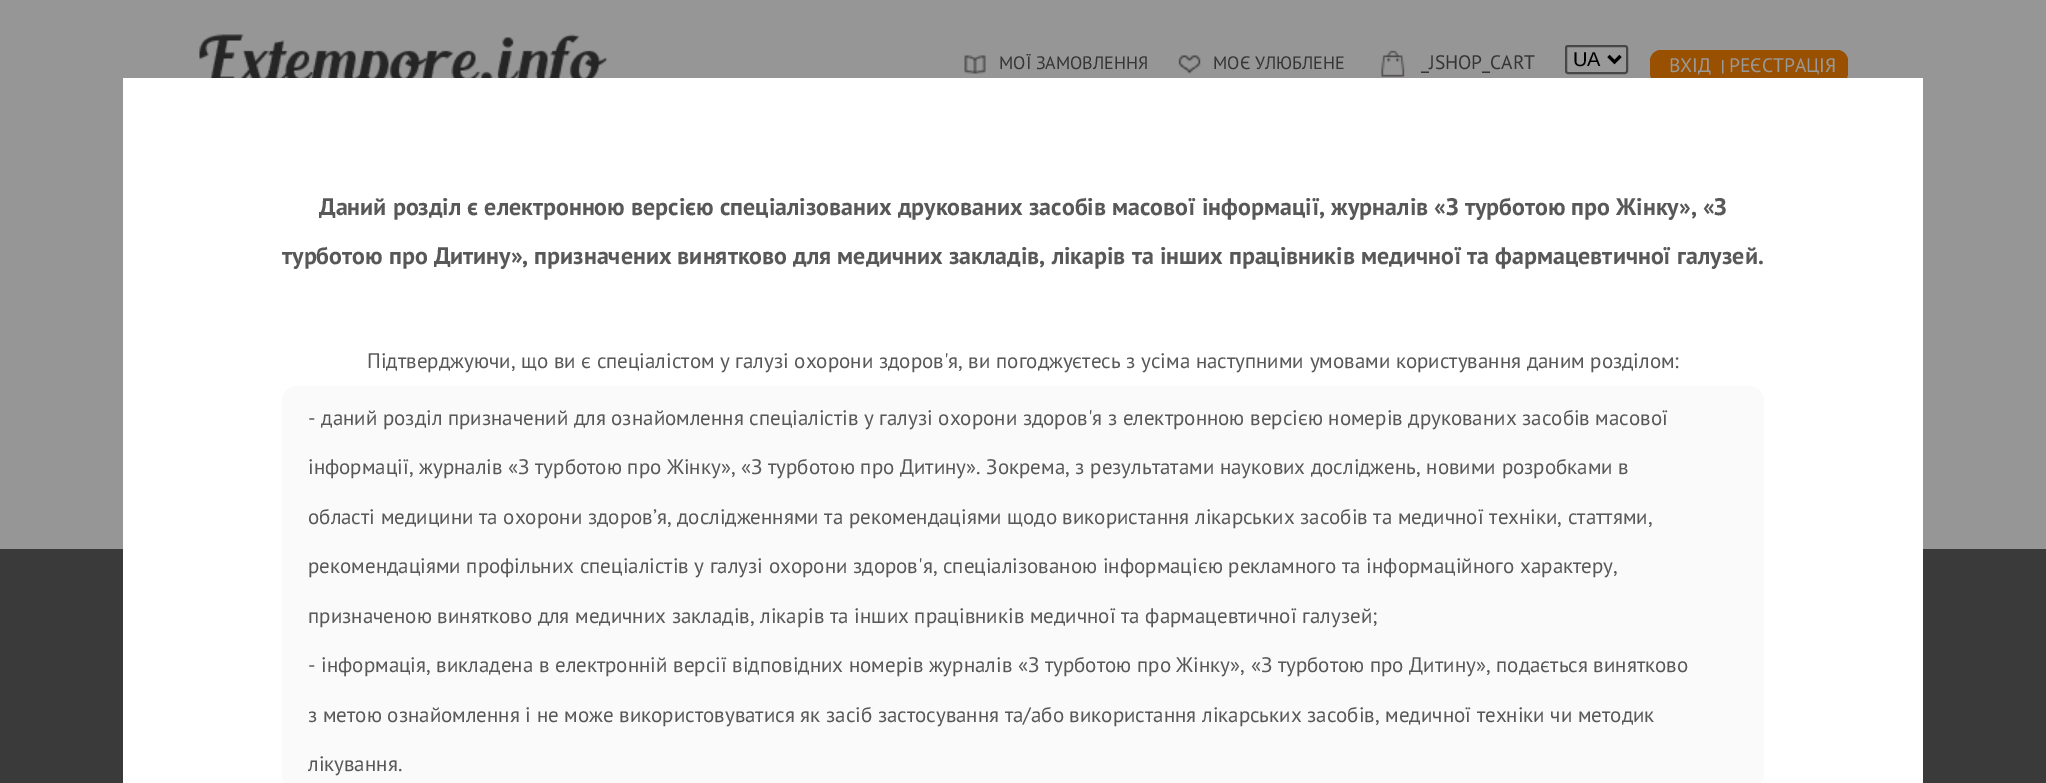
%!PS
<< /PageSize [2046 783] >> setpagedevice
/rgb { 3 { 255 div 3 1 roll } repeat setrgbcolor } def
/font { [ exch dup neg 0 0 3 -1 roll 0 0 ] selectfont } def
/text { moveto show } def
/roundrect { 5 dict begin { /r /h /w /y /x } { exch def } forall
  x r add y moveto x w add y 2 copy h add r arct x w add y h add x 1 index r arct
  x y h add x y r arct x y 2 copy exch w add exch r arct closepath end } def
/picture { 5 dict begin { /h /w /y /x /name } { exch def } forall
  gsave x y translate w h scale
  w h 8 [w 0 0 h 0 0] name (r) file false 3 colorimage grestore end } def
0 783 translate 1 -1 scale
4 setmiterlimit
150 150 150 rgb
0 0 2046 783 rectfill
(img_01.rgb) 199 34 409 44 picture
(img_02.rgb) 964 55 22 19 picture
(img_03.rgb) 1178 55 23 19 picture
(img_04.rgb) 1381 50 24 27 picture
153 153 153 rgb
1566 46 61 27 2 roundrect gsave fill grestore
71 71 71 rgb
2 setlinewidth
stroke
0 0 0 rgb
3 setlinewidth
1608.5 56 moveto 6 6 rlineto 6 -6 rlineto stroke
153 80 0 rgb
1650 50 198 34 11 roundrect fill
(img_05.rgb) 1722 60 2 14 picture
58 58 58 rgb
0 549 2046 234 rectfill
255 255 255 rgb
123 78 1800 705 rectfill
250 250 250 rgb
282 386 1482 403 15 roundrect fill
/PTSans-Regular 18 font
53 53 53 rgb
(МОЇ ЗАМОВЛЕННЯ) 999 69 text
(МОЄ УЛЮБЛЕНЕ) 1213 69 text
/PTSans-Regular 19.5 font
(_JSHOP_CART) 1421 69 text
/LiberationSans-Regular 20 font
0 0 0 rgb
(UA) 1573 66 text
/PTSans-Regular 19.5 font
153 153 153 rgb
(ВХІД) 1669 72 text
(РЕЄСТРАЦІЯ) 1729 72 text
/PTSans-Bold 24 font
88 88 88 rgb
(Даний розділ є електронною версією спеціалізованих друкованих засобів масової інформації, журналів «З турботою про Жінку», «З) 319 215 text
(турботою про Дитину», призначених винятково для медичних закладів, лікарів та інших працівників медичної та фармацевтичної галузей.) 282 264 text
/PTSans-Regular 21 font
(Підтверджуючи, що ви є спеціалістом у галузі охорони здоров'я, ви погоджуєтесь з усіма наступними умовами користування даним розділом:) 367 368 text
(- даний розділ призначений для ознайомлення спеціалістів у галузі охорони здоров'я з електронною версією номерів друкованих засобів масової) 308 425 text
(інформації, журналів «З турботою про Жінку», «З турботою про Дитину». Зокрема, з результатами наукових досліджень, новими розробками в) 308 474 text
(області медицини та охорони здоров’я, дослідженнями та рекомендаціями щодо використання лікарських засобів та медичної техніки, статтями,) 308 524 text
(рекомендаціями профільних спеціалістів у галузі охорони здоров'я, спеціалізованою інформацією рекламного та інформаційного характеру,) 308 573 text
(призначеною винятково для медичних закладів, лікарів та інших працівників медичної та фармацевтичної галузей;) 308 623 text
(- інформація, викладена в електронній версії відповідних номерів журналів «З турботою про Жінку», «З турботою про Дитину», подається винятково) 308 672 text
(з метою ознайомлення і не може використовуватися як засіб застосування та/або використання лікарських засобів, медичної техніки чи методик) 308 722 text
(лікування.) 308 771 text
showpage
